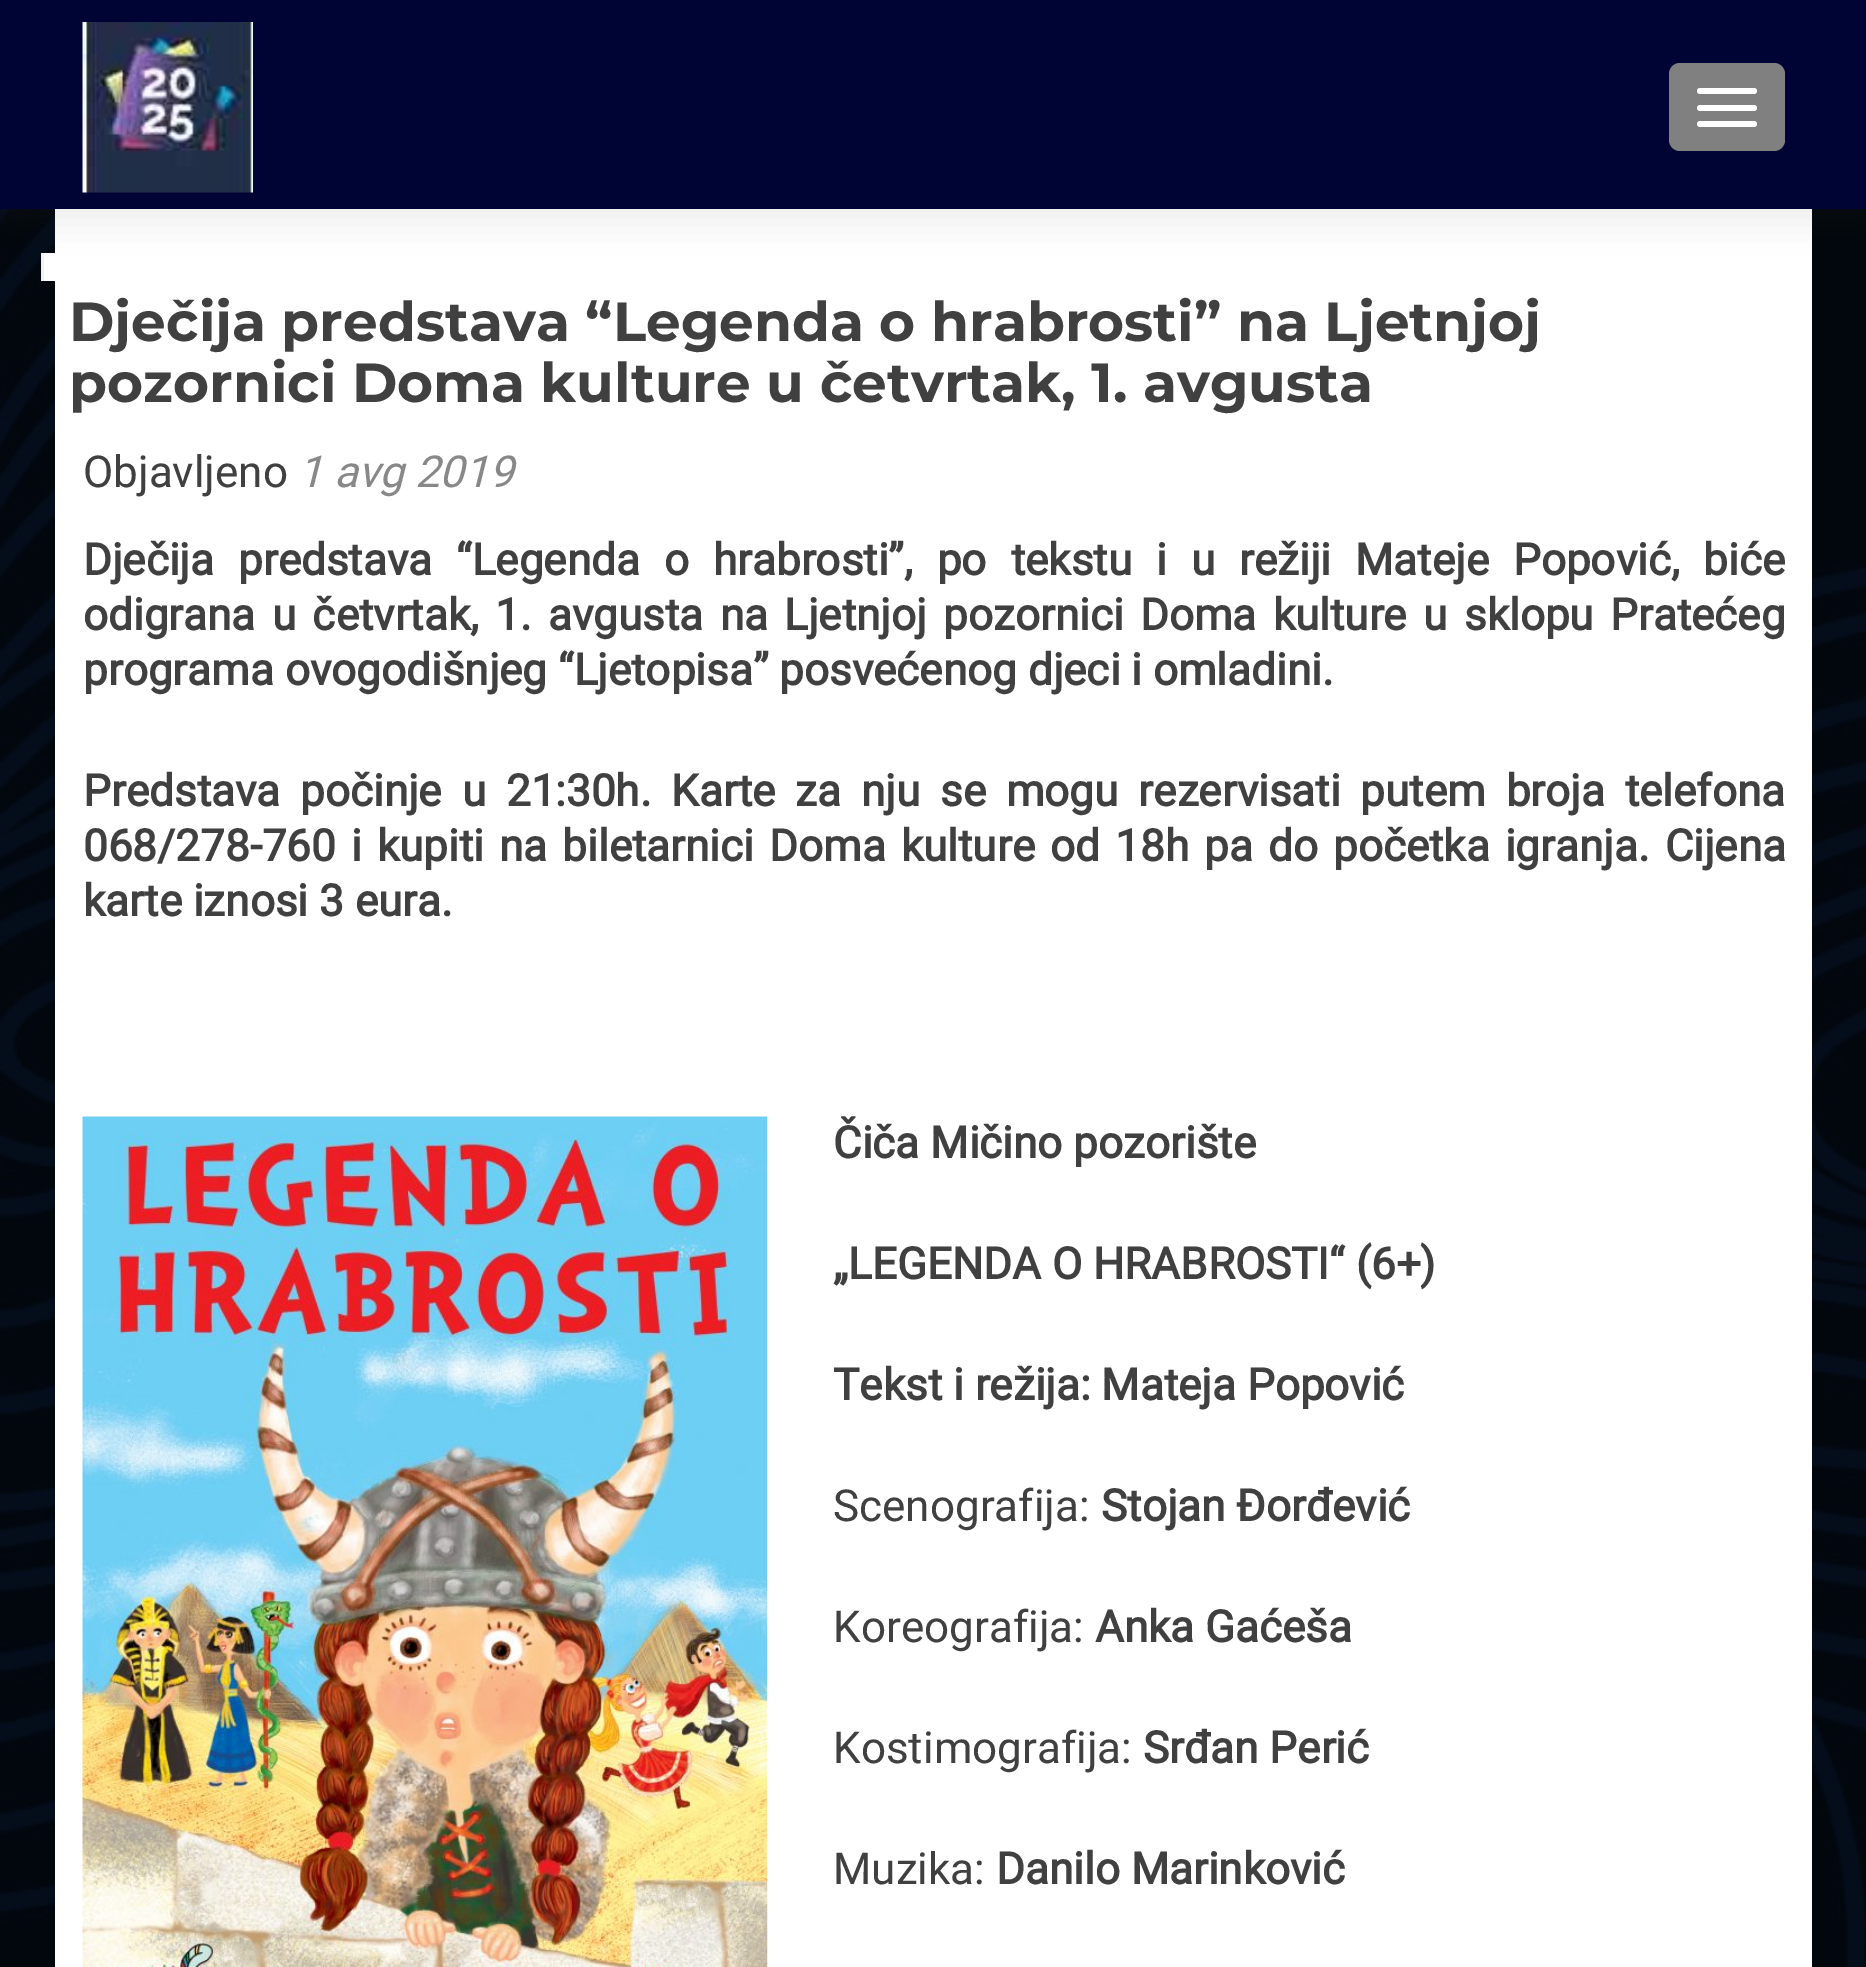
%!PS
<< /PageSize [1866 1967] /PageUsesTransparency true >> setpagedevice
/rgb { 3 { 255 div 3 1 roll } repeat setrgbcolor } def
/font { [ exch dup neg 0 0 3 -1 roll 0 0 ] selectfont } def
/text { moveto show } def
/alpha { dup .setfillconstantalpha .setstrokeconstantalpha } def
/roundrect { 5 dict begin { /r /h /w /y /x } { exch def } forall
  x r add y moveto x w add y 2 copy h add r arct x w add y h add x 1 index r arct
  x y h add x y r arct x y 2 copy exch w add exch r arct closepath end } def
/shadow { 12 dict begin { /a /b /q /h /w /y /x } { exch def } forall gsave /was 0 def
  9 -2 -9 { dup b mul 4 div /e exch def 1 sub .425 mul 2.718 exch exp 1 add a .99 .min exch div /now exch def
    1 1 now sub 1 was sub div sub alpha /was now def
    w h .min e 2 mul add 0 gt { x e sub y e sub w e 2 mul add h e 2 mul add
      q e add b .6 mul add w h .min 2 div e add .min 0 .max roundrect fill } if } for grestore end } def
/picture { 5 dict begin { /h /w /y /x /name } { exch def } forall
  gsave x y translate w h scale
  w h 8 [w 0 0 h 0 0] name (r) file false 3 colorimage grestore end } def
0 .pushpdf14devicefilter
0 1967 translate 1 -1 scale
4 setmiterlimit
255 255 255 rgb
0 0 1866 1967 rectfill
(img_02.rgb) 0 209 1866 1758 picture
44 253 11 28 rectfill
242 242 242 rgb
41 253 3 28 rectfill
255 255 255 rgb
55 209 1757 1758 rectfill
50 50 50 rgb
0 14 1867 209 0 15 0.08 shadow
0 4 52 rgb
0 0 1866 209 rectfill
(img_01.rgb) 82 22 171 171 picture
128 128 128 rgb
1669 63 116 88 11 roundrect fill
255 255 255 rgb
1697 88 60 6 3 roundrect fill
1697 105 60 6 3 roundrect fill
1697 121 60 6 3 roundrect fill
(img_03.rgb) 82 1116 686 851 picture
/Montserrat-Bold 55 font
64 64 64 rgb
(Dječija predstava “Legenda o hrabrosti” na Ljetnjoj) 69 341 text
(pozornici Doma kulture u četvrtak, 1. avgusta) 69 402 text
/Roboto-Regular 44 font
(Objavljeno) 83 487 text
/Roboto-Italic 44 font
136 136 136 rgb
(1 avg 2019) 298 487 text
/Roboto-Bold 44 font
64 64 64 rgb
83 575 moveto 13.1 0 32 (Dječija predstava “Legenda o hrabrosti”, po tekstu i u režiji Mateje Popović, biće) widthshow
83 630 moveto 5.5 0 32 (odigrana u četvrtak, 1. avgusta na Ljetnjoj pozornici Doma kulture u sklopu Pratećeg) widthshow
(programa ovogodišnjeg “Ljetopisa” posvećenog djeci i omladini.) 83 685 text
83 806 moveto 9 0 32 (Predstava počinje u 21:30h. Karte za nju se mogu rezervisati putem broja telefona) widthshow
83 861 moveto 4.25 0 32 (068/278-760 i kupiti na biletarnici Doma kulture od 18h pa do početka igranja. Cijena) widthshow
(karte iznosi 3 eura.) 83 916 text
(Čiča Mičino pozorište) 833 1158 text
(„LEGENDA O HRABROSTI“ \(6+\)) 833 1279 text
(Tekst i režija: Mateja Popović) 833 1400 text
/Roboto-Regular 44 font
(Scenografija:) 833 1521 text
/Roboto-Bold 44 font
(Stojan Đorđević) 1101 1521 text
/Roboto-Regular 44 font
(Koreografija:) 833 1642 text
/Roboto-Bold 44 font
(Anka Gaćeša) 1095 1642 text
/Roboto-Regular 44 font
(Kostimografija:) 833 1763 text
/Roboto-Bold 44 font
(Srđan Perić) 1143 1763 text
/Roboto-Regular 44 font
(Muzika:) 833 1884 text
/Roboto-Bold 44 font
(Danilo Marinković) 996 1884 text
.poppdf14devicefilter showpage
